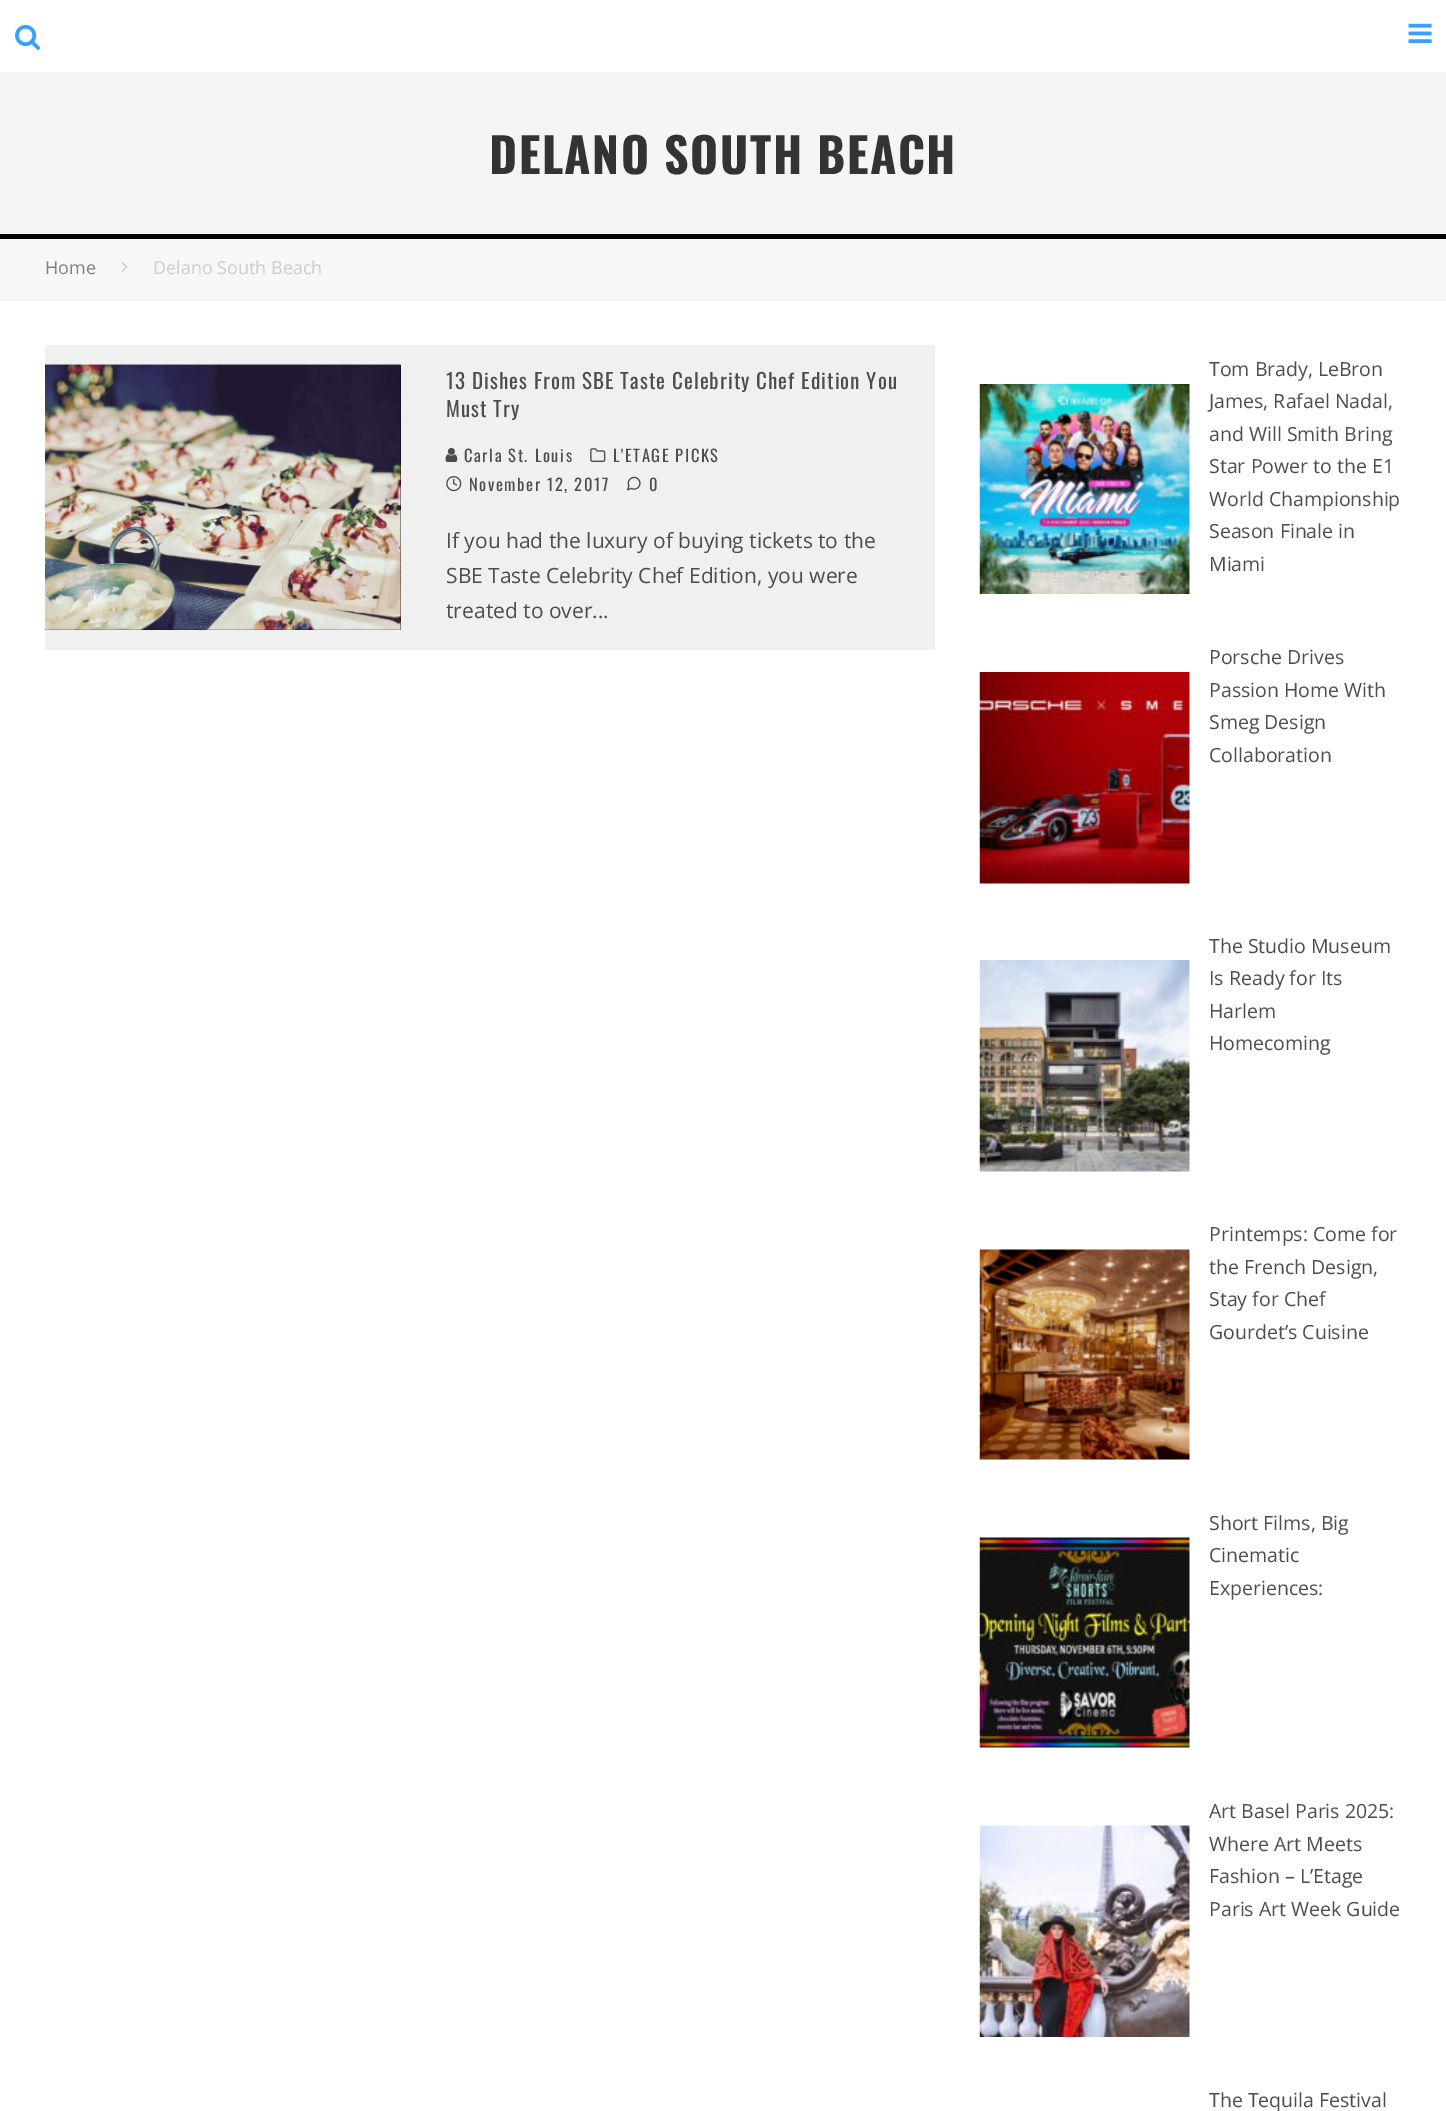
%!PS
<< /PageSize [1446 2111] >> setpagedevice
/rgb { 3 { 255 div 3 1 roll } repeat setrgbcolor } def
/font { [ exch dup neg 0 0 3 -1 roll 0 0 ] selectfont } def
/text { moveto show } def
/picture { 5 dict begin { /h /w /y /x /name } { exch def } forall
  gsave x y translate w h scale
  w h 8 [w 0 0 h 0 0] name (r) file false 3 colorimage grestore end } def
0 2111 translate 1 -1 scale
4 setmiterlimit
255 255 255 rgb
0 0 1446 2111 rectfill
(img_01.rgb) 15 24 25 26 picture
(img_02.rgb) 1408 23 24 21 picture
245 245 245 rgb
0 72 1446 162 rectfill
0 0 0 rgb
0 234 1446 5 rectfill
247 247 247 rgb
0 239 1446 60 rectfill
243 243 243 rgb
0 299 1446 2 rectfill
(img_03.rgb) 121 261 7 12 picture
240 240 240 rgb
45 345 890 305 rectfill
0 0 0 rgb
45 365 356 265 rectfill
(img_04.rgb) 45 364 356 266 picture
(img_05.rgb) 445 447 13 15 picture
(img_06.rgb) 590 448 16 14 picture
(img_07.rgb) 446 476 16 16 picture
(img_08.rgb) 626 476 15 15 picture
(img_09.rgb) 979 384 211 210 picture
(img_10.rgb) 979 672 211 212 picture
(img_11.rgb) 979 960 211 212 picture
(img_12.rgb) 979 1249 211 211 picture
(img_13.rgb) 979 1537 211 211 picture
(img_14.rgb) 979 1825 211 212 picture
/Oswald-Bold 48 font
51 51 51 rgb
489 174 moveto 1.5 0 (DELANO SOUTH BEACH) ashow
/OpenSans-Regular 18 font
128 128 128 rgb
(Home) 45 274 text
204 204 204 rgb
(Delano South Beach) 153 274 text
/Oswald-Regular 21 font
77 77 77 rgb
446 389 moveto 1.05 0 (13 Dishes From SBE Taste Celebrity Chef Edition You) ashow
446 417 moveto 1.05 0 (Must Try) ashow
/Oswald-Regular 16.5 font
464 462 moveto 1.6 0 (Carla St. Louis) ashow
613 462 moveto 1.6 0 (L'ETAGE PICKS) ashow
469 491 moveto 1.6 0 (November 12, 2017) ashow
649 491 moveto 1.6 0 (0) ashow
/OpenSans-Regular 21 font
(If you had the luxury of buying tickets to the) 446 548 text
(SBE Taste Celebrity Chef Edition, you were) 446 583 text
(treated to over...) 446 618 text
/OpenSans-Regular 19.5 font
(Tom Brady, LeBron) 1209 376 text
(James, Rafael Nadal,) 1209 408 text
(and Will Smith Bring) 1209 441 text
(Star Power to the E1) 1209 473 text
(World Championship) 1209 506 text
(Season Finale in) 1209 538 text
(Miami) 1209 571 text
(Porsche Drives) 1209 664 text
(Passion Home With) 1209 697 text
(Smeg Design) 1209 729 text
(Collaboration) 1209 762 text
(The Studio Museum) 1209 953 text
(Is Ready for Its) 1209 985 text
(Harlem) 1209 1018 text
(Homecoming) 1209 1050 text
(Printemps: Come for) 1209 1241 text
(the French Design,) 1209 1274 text
(Stay for Chef) 1209 1306 text
(Gourdet’s Cuisine) 1209 1339 text
(Short Films, Big) 1209 1530 text
(Cinematic) 1209 1562 text
(Experiences:) 1209 1595 text
(Art Basel Paris 2025:) 1209 1818 text
(Where Art Meets) 1209 1851 text
(Fashion – L’Etage) 1209 1883 text
(Paris Art Week Guide) 1209 1916 text
(The Tequila Festival) 1209 2107 text
showpage
